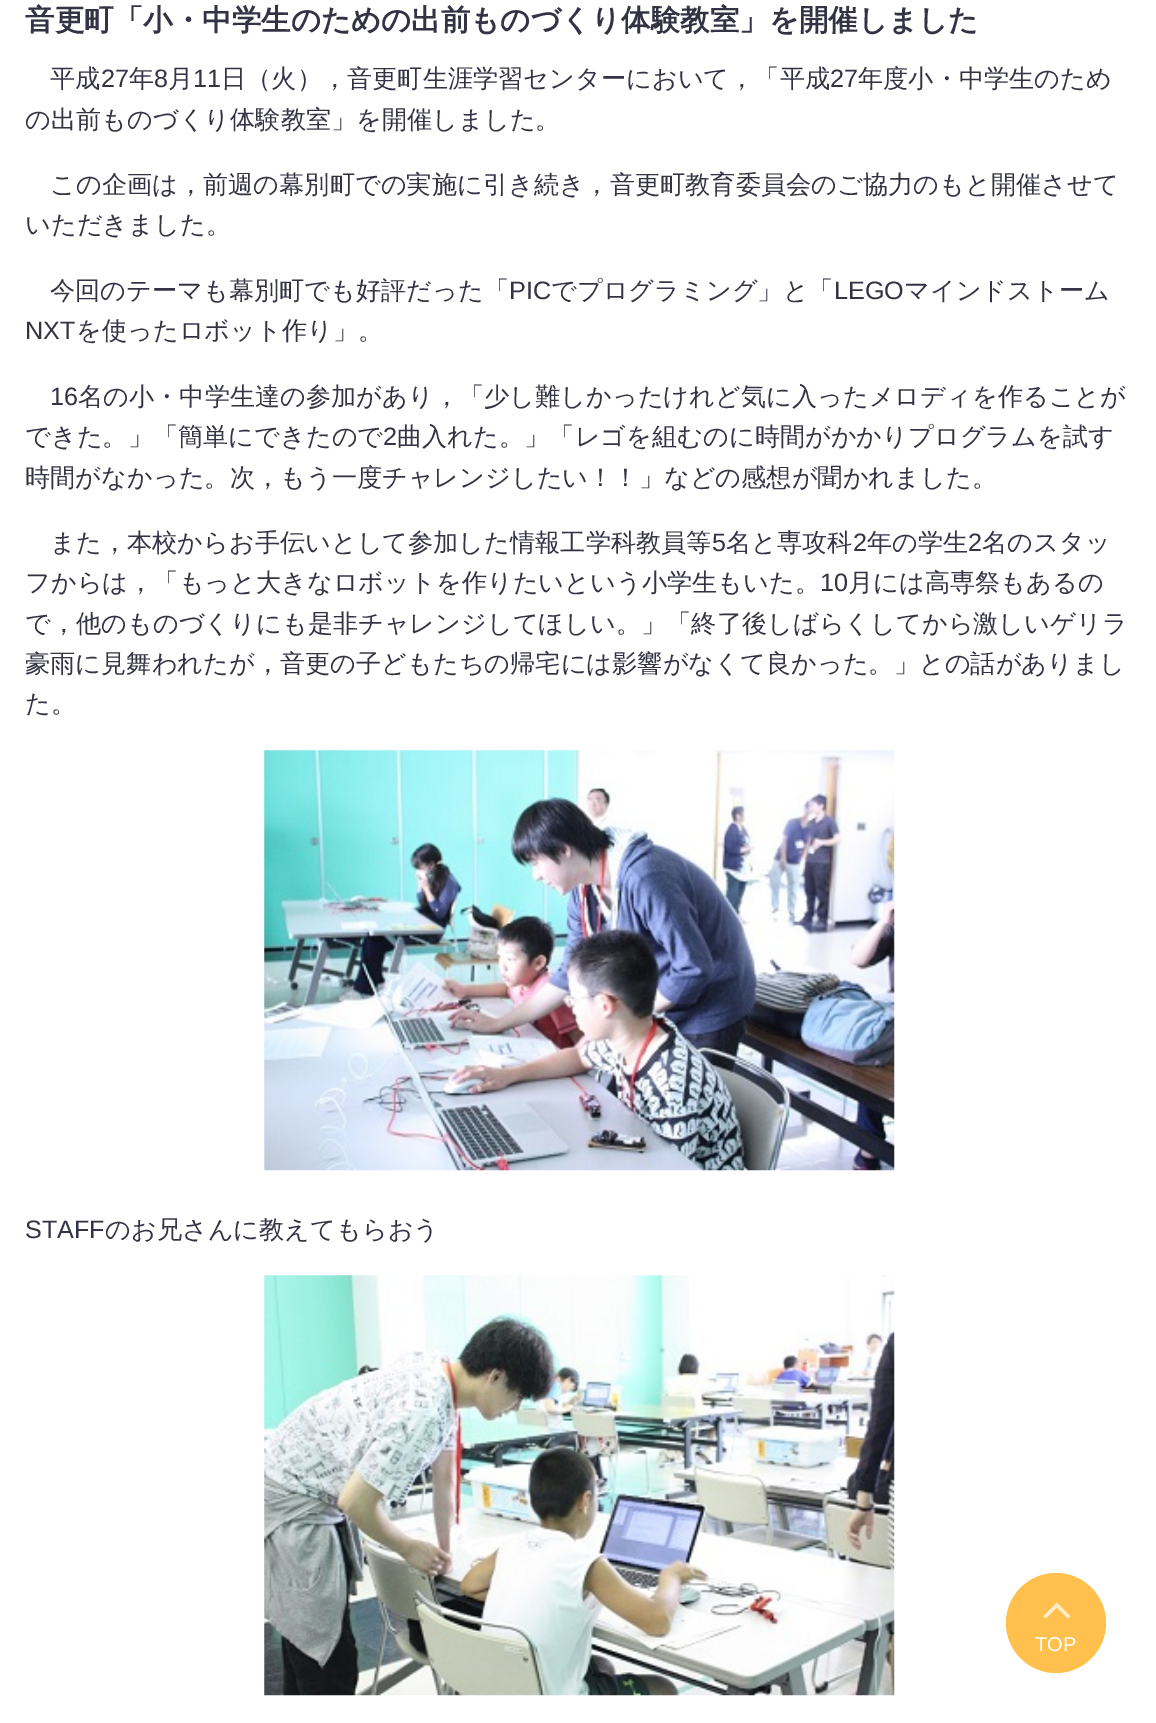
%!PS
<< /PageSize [1156 1723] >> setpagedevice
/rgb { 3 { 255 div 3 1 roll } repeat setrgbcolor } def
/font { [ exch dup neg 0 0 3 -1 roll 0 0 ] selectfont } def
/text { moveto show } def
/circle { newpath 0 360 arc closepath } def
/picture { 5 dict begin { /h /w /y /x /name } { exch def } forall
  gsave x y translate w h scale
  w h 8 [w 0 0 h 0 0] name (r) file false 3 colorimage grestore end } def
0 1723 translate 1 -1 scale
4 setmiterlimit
255 255 255 rgb
0 0 1156 1723 rectfill
(img_01.rgb) 264 750 631 421 picture
(img_02.rgb) 264 1275 631 421 picture
255 192 77 rgb
1056 1623 50 circle fill
(img_03.rgb) 1043 1602 28 17 picture
/WenQuanYiZenHei-Bold 29.5 font
51 51 68 rgb
(音更町「小・中学生のための出前ものづくり体験教室」を開催しました) 25 30 text
/WenQuanYiZenHei-Medium 25.2 font
(平成) 50 87 text
/LiberationSans-Regular 25.2 font
(27) 101 87 text
/WenQuanYiZenHei-Medium 25.2 font
(年) 129 87 text
/LiberationSans-Regular 25.2 font
(8) 154 87 text
/WenQuanYiZenHei-Medium 25.2 font
(月) 168 87 text
/LiberationSans-Regular 25.2 font
(11) 193 87 text
/WenQuanYiZenHei-Medium 25.2 font
(日（火），音更町生涯学習センターにおいて，「平成) 221 87 text
/LiberationSans-Regular 25.2 font
(27) 830 87 text
/WenQuanYiZenHei-Medium 25.2 font
(年度小・中学生のため) 858 87 text
(の出前ものづくり体験教室」を開催しました。) 25 128 text
(この企画は，前週の幕別町での実施に引き続き，音更町教育委員会のご協力のもと開催させて) 50 193 text
(いただきました。) 25 233 text
(今回のテーマも幕別町でも好評だった「) 50 299 text
/LiberationSans-Regular 25.2 font
(PIC) 509 299 text
/WenQuanYiZenHei-Medium 25.2 font
(でプログラミング」と「) 551 299 text
/LiberationSans-Regular 25.2 font
(LEGO) 834 299 text
/WenQuanYiZenHei-Medium 25.2 font
(マインドストーム) 904 299 text
/LiberationSans-Regular 25.2 font
(NXT) 25 339 text
/WenQuanYiZenHei-Medium 25.2 font
(を使ったロボット作り」。) 76 339 text
/LiberationSans-Regular 25.2 font
(16) 50 405 text
/WenQuanYiZenHei-Medium 25.2 font
(名の小・中学生達の参加があり，「少し難しかったけれど気に入ったメロディを作ることが) 78 405 text
(できた。」「簡単にできたので) 25 445 text
/LiberationSans-Regular 25.2 font
(2) 383 445 text
/WenQuanYiZenHei-Medium 25.2 font
(曲入れた。」「レゴを組むのに時間がかかりプログラムを試す) 397 445 text
(時間がなかった。次，もう一度チャレンジしたい！！」などの感想が聞かれました。) 25 486 text
(また，本校からお手伝いとして参加した情報工学科教員等) 50 551 text
/LiberationSans-Regular 25.2 font
(5) 712 551 text
/WenQuanYiZenHei-Medium 25.2 font
(名と専攻科) 726 551 text
/LiberationSans-Regular 25.2 font
(2) 853 551 text
/WenQuanYiZenHei-Medium 25.2 font
(年の学生) 867 551 text
/LiberationSans-Regular 25.2 font
(2) 968 551 text
/WenQuanYiZenHei-Medium 25.2 font
(名のスタッ) 982 551 text
(フからは，「もっと大きなロボットを作りたいという小学生もいた。) 25 591 text
/LiberationSans-Regular 25.2 font
(10) 820 591 text
/WenQuanYiZenHei-Medium 25.2 font
(月には高専祭もあるの) 848 591 text
(で，他のものづくりにも是非チャレンジしてほしい。」「終了後しばらくしてから激しいゲリラ) 25 632 text
(豪雨に見舞われたが，音更の子どもたちの帰宅には影響がなくて良かった。」との話がありまし) 25 672 text
(た。) 25 712 text
/LiberationSans-Regular 25.2 font
(STAFF) 25 1238 text
/WenQuanYiZenHei-Medium 25.2 font
(のお兄さんに教えてもらおう) 105 1238 text
/LiberationSans-Regular 20 font
255 255 255 rgb
(TOP) 1035 1651 text
showpage
